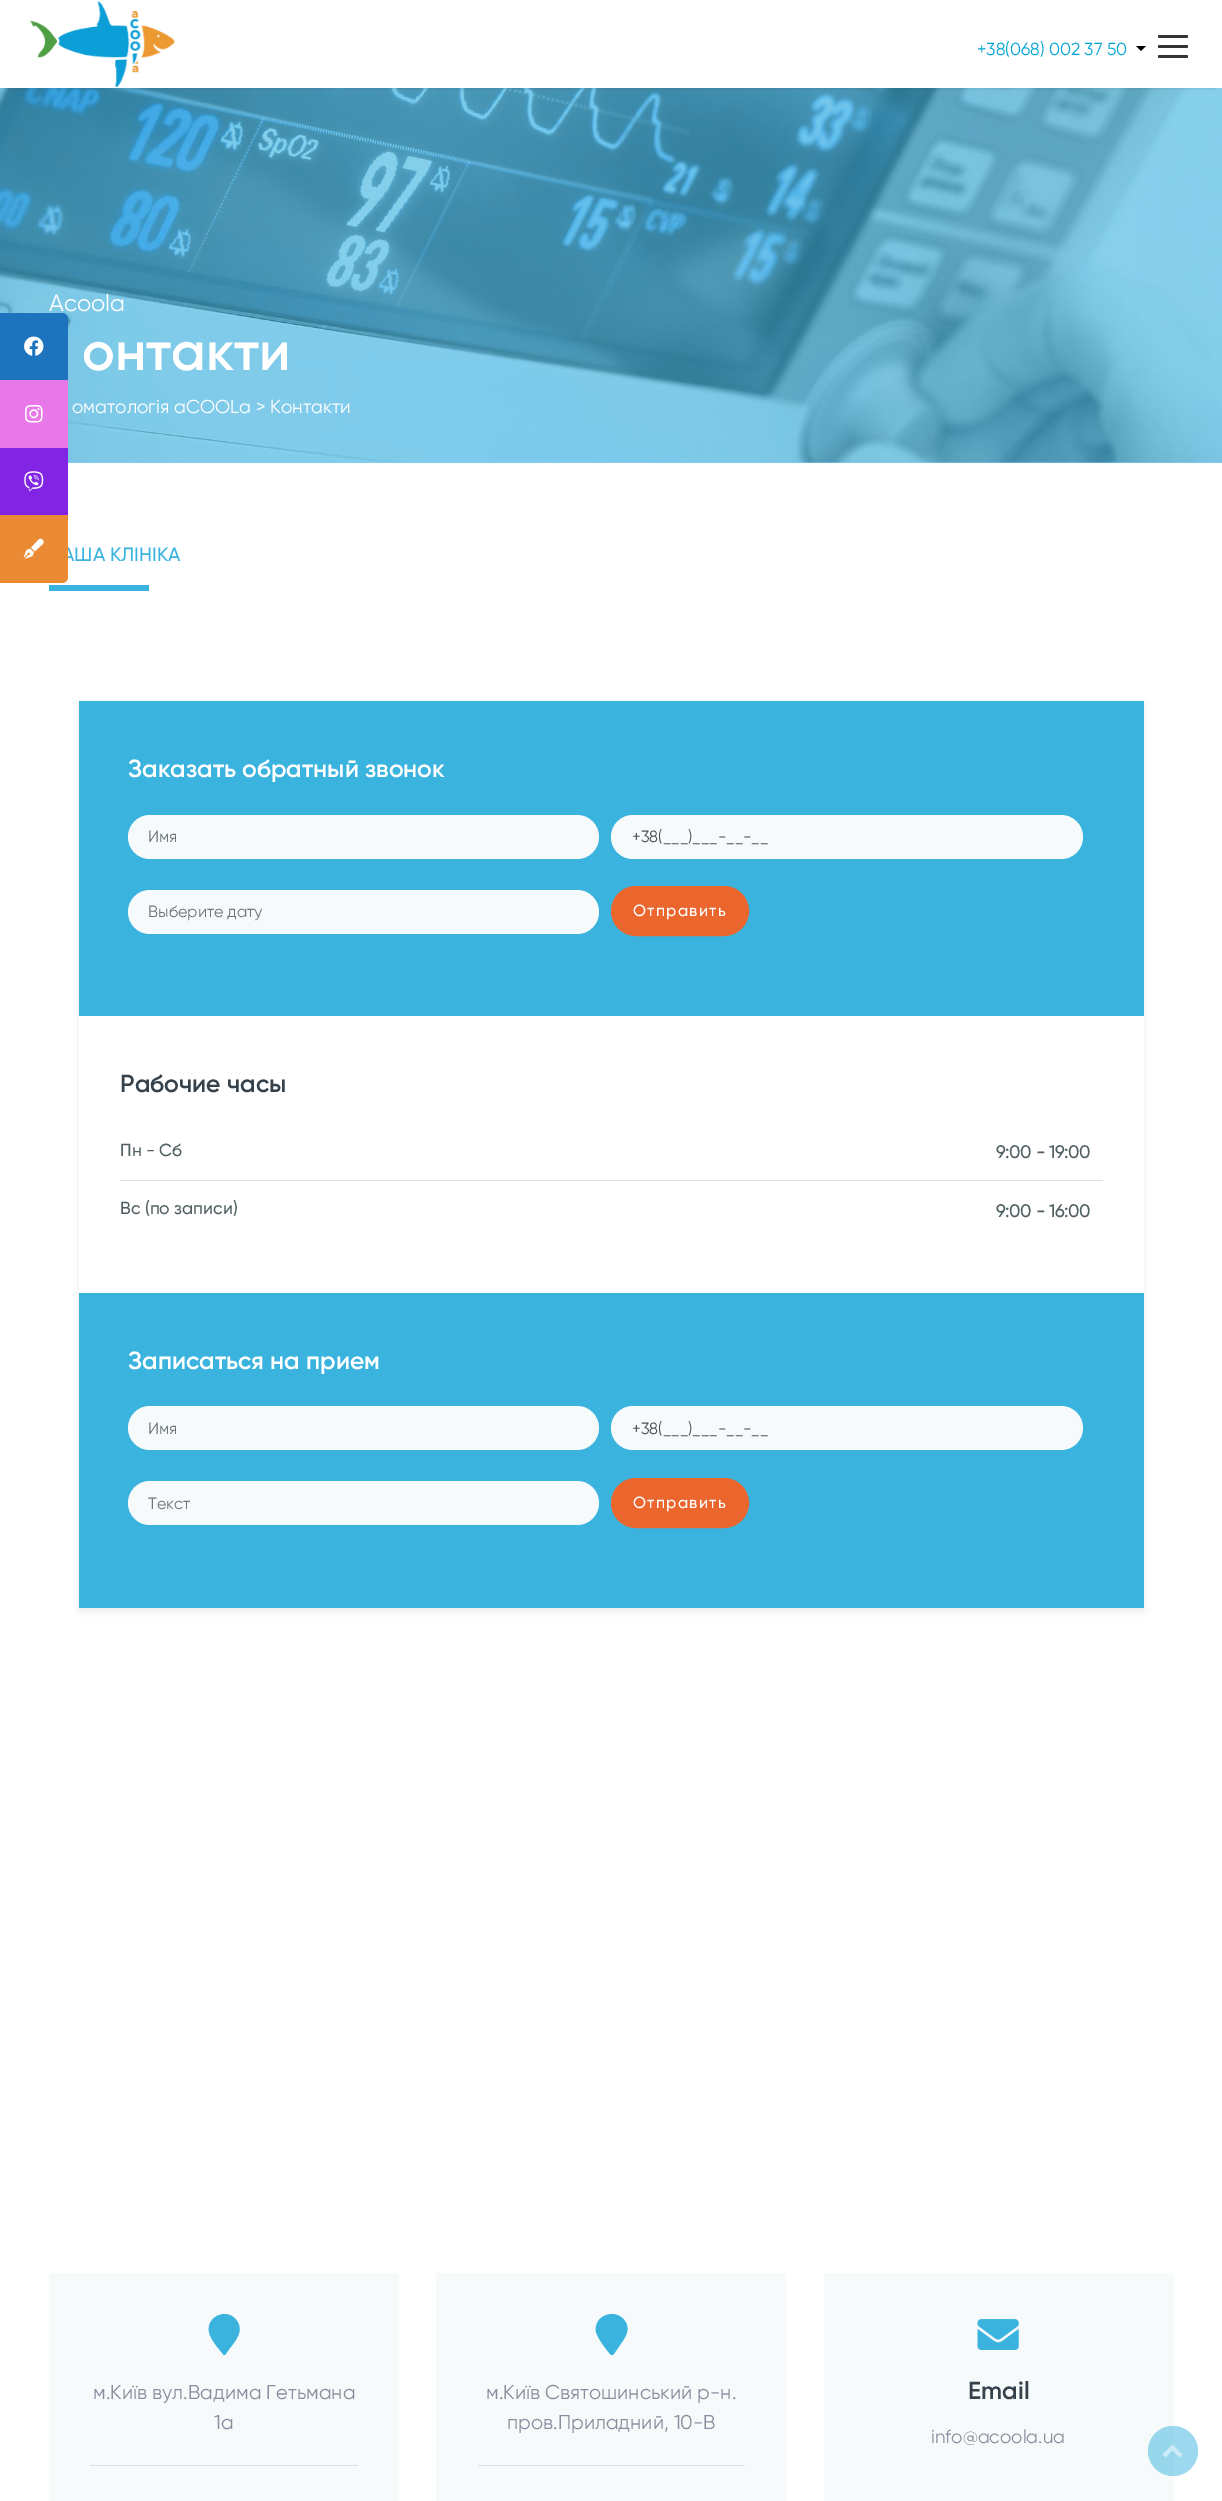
%!PS
<< /PageSize [1222 2501] /PageUsesTransparency true >> setpagedevice
/rgb { 3 { 255 div 3 1 roll } repeat setrgbcolor } def
/font { [ exch dup neg 0 0 3 -1 roll 0 0 ] selectfont } def
/text { moveto show } def
/alpha { dup .setfillconstantalpha .setstrokeconstantalpha } def
/circle { newpath 0 360 arc closepath } def
/roundrect { 5 dict begin { /r /h /w /y /x } { exch def } forall
  x r add y moveto x w add y 2 copy h add r arct x w add y h add x 1 index r arct
  x y h add x y r arct x y 2 copy exch w add exch r arct closepath end } def
/shadow { 12 dict begin { /a /b /q /h /w /y /x } { exch def } forall gsave /was 0 def
  9 -2 -9 { dup b mul 4 div /e exch def 1 sub .425 mul 2.718 exch exp 1 add a .99 .min exch div /now exch def
    1 1 now sub 1 was sub div sub alpha /was now def
    w h .min e 2 mul add 0 gt { x e sub y e sub w e 2 mul add h e 2 mul add
      q e add b .6 mul add w h .min 2 div e add .min 0 .max roundrect fill } if } for grestore end } def
/picture { 5 dict begin { /h /w /y /x /name } { exch def } forall
  gsave x y translate w h scale
  w h 8 [w 0 0 h 0 0] name (r) file false 3 colorimage grestore end } def
0 .pushpdf14devicefilter
0 2501 translate 1 -1 scale
4 setmiterlimit
255 255 255 rgb
0 0 1222 2501 rectfill
137 209 236 rgb
68 462 1154 1 rectfill
(img_06.rgb) 0 88 1222 375 picture
51 51 51 rgb
8 13 1207 72 0 2.5 1 shadow
255 255 255 rgb
2 7 1219 81 rectfill
(img_01.rgb) 30 1 145 86 picture
0 0 0 rgb
1136 46 moveto 10 0 rlineto -5 5 rlineto closepath fill
51 51 51 rgb
1158 55 30 3 1.5 roundrect fill
1158 45 30 3 1.5 roundrect fill
1158 35 30 3 1.5 roundrect fill
30 115 190 rgb
0 313 moveto 62 0 rlineto 3.5 0 6 2.5 6 6 rcurveto 0 61 rlineto -68 0 rlineto closepath fill
(img_02.rgb) 24 336 20 20 picture
232 120 232 rgb
0 380 68 68 rectfill
(img_03.rgb) 25 405 18 18 picture
130 36 227 rgb
0 448 68 67 rectfill
(img_04.rgb) 24 471 20 21 picture
58 179 223 rgb
49 585 100 6 rectfill
0 0 0 rgb
79 705 1065 906 0 3.5 0.07 shadow
255 255 255 rgb
79 1016 1065 277 rectfill
58 179 223 rgb
79 701 1065 315 rectfill
247 250 250 rgb
128 815 471 44 22 roundrect fill
611 815 472 44 22 roundrect fill
128 890 471 44 22 roundrect fill
235 102 45 rgb
612.5 887.5 135 47 23.5 roundrect gsave fill grestore
3 setlinewidth
stroke
223 223 223 rgb
120 1180 983 1 rectfill
58 179 223 rgb
79 1293 1065 315 rectfill
247 250 250 rgb
128 1406 471 44 22 roundrect fill
611 1406 472 44 22 roundrect fill
128 1481 471 44 22 roundrect fill
235 102 45 rgb
612.5 1479.5 135 47 23.5 roundrect gsave fill grestore
stroke
247 250 250 rgb
49 2273 350 228 rectfill
58 179 223 rgb
223 2354 moveto -4 -5 -13 -15 -14 -22 rcurveto -3 -16 19 -25 28 -11 rcurveto 7 10 -1 19 -7 27 rcurveto -5 7 rlineto -1 0 -2 0 -2 -1 rcurveto closepath fill
222 225 225 rgb
90 2465 268 1 rectfill
247 250 250 rgb
436 2273 350 228 rectfill
58 179 223 rgb
610 2354 moveto -4 -5 -12 -15 -14 -22 rcurveto -3 -16 19 -25 29 -11 rcurveto 7 10 -2 19 -7 27 rcurveto -5 7 rlineto -1 0 -2 0 -3 -1 rcurveto closepath fill
222 225 225 rgb
478 2465 267 1 rectfill
247 250 250 rgb
824 2273 350 228 rectfill
(img_07.rgb) 977 2319 42 31 picture
0.5 alpha
58 179 223 rgb
1173 2451 25 circle fill
255 255 255 rgb
1172.5 2444.5 moveto 10 10 rlineto -3 3 rlineto -7 -7 rlineto -7 7 rlineto -3 -3 rlineto closepath fill
/Gilroy-Regular 17.5 font
1 alpha
3 164 212 rgb
(+38\(068\) 002 37 50) 977 55 text
/Gilroy-Regular 23.5 font
255 255 255 rgb
(Acoola) 49 311 text
/Gilroy-SemiBold 55 font
(онтакти) 82 370 text
/Gilroy-Regular 18.75 font
(оматологія aCOOLa > Контакти) 72 413 text
/Gilroy-Medium 19.25 font
58 179 223 rgb
(АША КЛІНІКА) 62 561 text
234 138 53 rgb
0 515 moveto 68 0 rlineto 0 62 rlineto 0 3.5 -2.5 6 -6 6 rcurveto -62 0 rlineto closepath fill
(img_05.rgb) 23 538 21 21 picture
/Gilroy-SemiBold 24.75 font
255 255 255 rgb
(Заказать обратный звонок) 128 777 text
/Gilroy-Regular 16.25 font
108 117 125 rgb
(Имя) 148 842 text
73 80 87 rgb
(+38\(___\)___-__-__) 632 842 text
108 117 125 rgb
(Выберите дату) 148 917 text
/Gilroy-Medium 16.25 font
255 255 255 rgb
633 916 moveto 1.25 0 (Отправить) ashow
/Gilroy-SemiBold 24.75 font
53 65 75 rgb
(Рабочие часы) 120 1092 text
/Gilroy-Medium 17.5 font
81 97 99 rgb
(Пн - Cб) 120 1156 text
/Gilroy-Bold 17.5 font
(9:00 - 19:00) 996 1158 text
/Gilroy-Medium 17.5 font
(Вс \(по записи\)) 120 1214 text
/Gilroy-Bold 17.5 font
(9:00 - 16:00) 996 1217 text
/Gilroy-SemiBold 24.75 font
255 255 255 rgb
(Записаться на прием) 128 1369 text
/Gilroy-Regular 16.25 font
108 117 125 rgb
(Имя) 148 1434 text
73 80 87 rgb
(+38\(___\)___-__-__) 632 1434 text
108 117 125 rgb
(Текст) 148 1509 text
/Gilroy-Medium 16.25 font
255 255 255 rgb
633 1508 moveto 1.25 0 (Отправить) ashow
/Gilroy-Regular 20 font
140 140 158 rgb
(м.Київ вул.Вадима Гетьмана) 93 2399 text
(1а) 214 2429 text
(м.Київ Святошинський р-н.) 486 2399 text
(пров.Приладний, 10-В) 507 2429 text
/Gilroy-SemiBold 24.75 font
53 65 75 rgb
(Email) 968 2399 text
/Gilroy-Regular 18.75 font
140 140 158 rgb
(info@acoola.ua) 931 2443 text
.poppdf14devicefilter showpage
